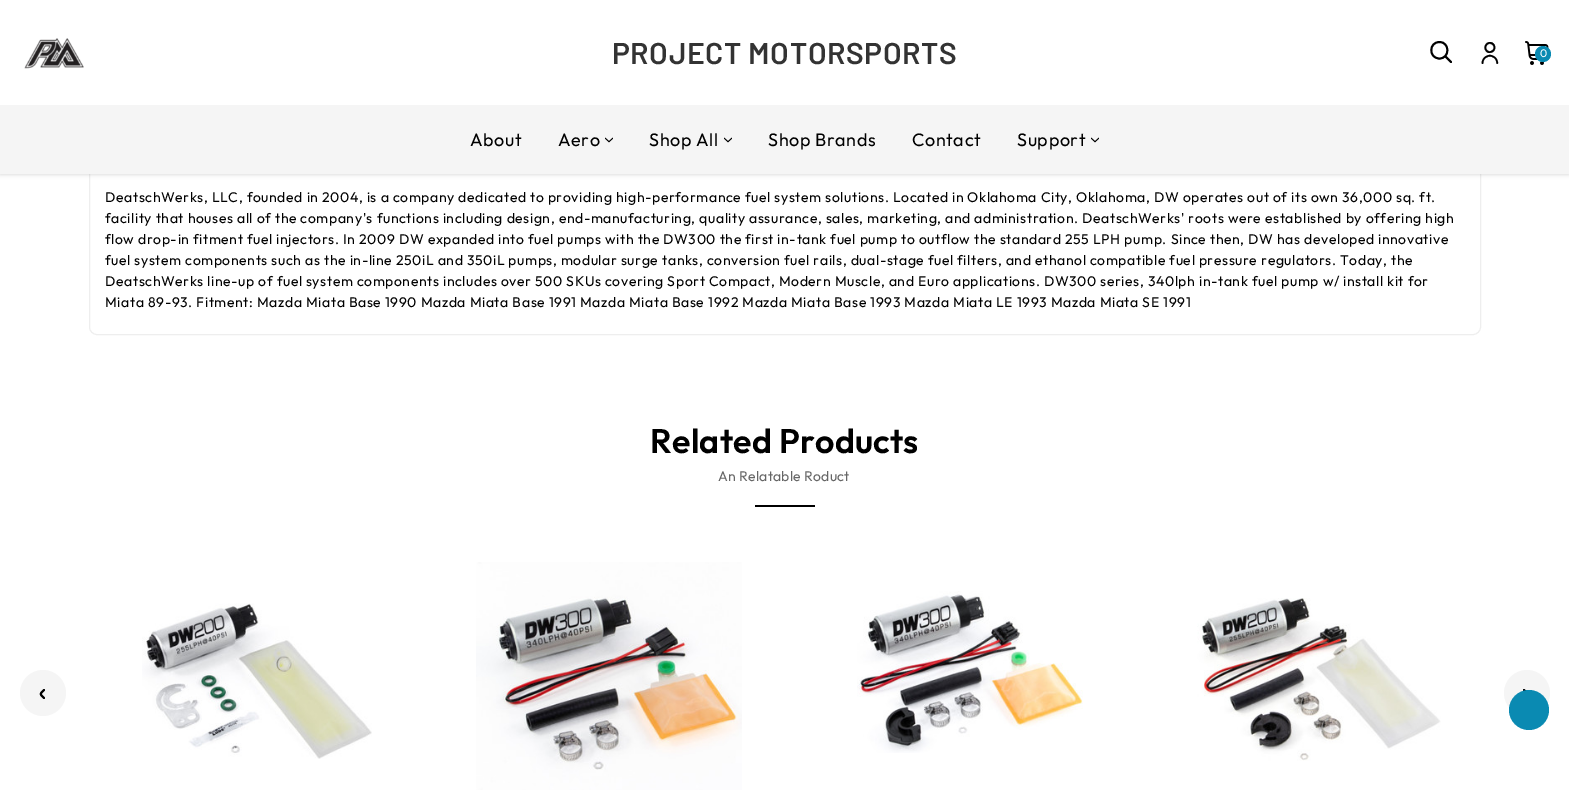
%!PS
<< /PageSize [1569 790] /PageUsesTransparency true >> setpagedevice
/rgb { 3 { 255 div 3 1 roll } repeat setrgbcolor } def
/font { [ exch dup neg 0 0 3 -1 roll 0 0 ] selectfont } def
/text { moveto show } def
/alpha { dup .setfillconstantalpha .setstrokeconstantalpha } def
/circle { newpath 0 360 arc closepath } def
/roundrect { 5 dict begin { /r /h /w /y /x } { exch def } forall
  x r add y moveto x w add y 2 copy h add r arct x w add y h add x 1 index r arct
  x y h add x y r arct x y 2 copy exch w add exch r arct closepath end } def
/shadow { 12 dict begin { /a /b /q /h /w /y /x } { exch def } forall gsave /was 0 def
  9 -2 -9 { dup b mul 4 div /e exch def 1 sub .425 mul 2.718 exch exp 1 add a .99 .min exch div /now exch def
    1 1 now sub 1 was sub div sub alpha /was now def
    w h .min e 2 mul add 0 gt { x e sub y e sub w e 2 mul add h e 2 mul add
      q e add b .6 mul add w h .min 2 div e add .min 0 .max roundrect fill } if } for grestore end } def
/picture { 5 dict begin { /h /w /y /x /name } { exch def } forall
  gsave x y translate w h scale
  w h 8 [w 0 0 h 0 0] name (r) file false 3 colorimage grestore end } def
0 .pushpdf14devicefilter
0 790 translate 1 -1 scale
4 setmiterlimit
255 255 255 rgb
0 0 1569 790 rectfill
238 238 238 rgb
89.5 124.5 1391 210 7.5 roundrect stroke
0 0 0 rgb
0 0 1569 174 0 2.5 0.18 shadow
255 255 255 rgb
0 0 1569 105 rectfill
(img_01.rgb) 24 38 60 31 picture
0 0 0 rgb
2 setlinewidth
1 setlinecap
1 setlinejoin
1446 57 moveto 5 5 rlineto stroke
1.9 setlinewidth
1439.5 58.5 moveto 10.5 0 10.5 -16.5 0 -16.5 rcurveto -11 0 -11 16.5 0 16.5 rcurveto closepath stroke
(img_02.rgb) 1481 42 18 22 picture
(img_03.rgb) 1525 41 24 24 picture
10 138 178 rgb
1543 54 8 circle fill
245 245 245 rgb
0 105 1569 69 rectfill
(img_04.rgb) 605 137 8 6 picture
(img_04.rgb) 724 137 8 6 picture
(img_04.rgb) 1091 137 8 6 picture
0 0 0 rgb
755 505 60 2 rectfill
(img_05.rgb) 142 603 230 156 picture
(img_06.rgb) 476 562 266 228 picture
(img_07.rgb) 857 591 226 162 picture
(img_08.rgb) 1197 598 244 163 picture
245 245 245 rgb
43 693 23 circle fill
0 0 0 rgb
2 setlinewidth
44 690 moveto -4.5 4.5 -4.5 3.5 0 8 rcurveto stroke
245 245 245 rgb
1527 693 23 circle fill
0 0 0 rgb
1524 690 moveto 4.5 4.5 4.5 3.5 0 8 rcurveto stroke
10 138 178 rgb
1529 710 20 circle fill
/Barlow-SemiBold 30 font
51 51 51 rgb
612 64 moveto 0.6 0 (PROJECT MOTORSPORTS) ashow
/Outfit-Regular 11 font
255 255 255 rgb
(0) 1540 57 text
/Outfit-Regular 18 font
0 0 0 rgb
470 146 moveto 0.6 0 (About) ashow
558 146 moveto 0.6 0 (Aero) ashow
649 146 moveto 0.6 0 (Shop All) ashow
768 146 moveto 0.6 0 (Shop Brands) ashow
912 146 moveto 0.6 0 (Contact) ashow
1017 146 moveto 0.6 0 (Support) ashow
/Outfit-Regular 14 font
105 202 moveto 0.6 0 (DeatschWerks, LLC, founded in 2004, is a company dedicated to providing high-performance fuel system solutions. Located in Oklahoma City, Oklahoma, DW operates out of its own 36,000 sq. ft.) ashow
105 223 moveto 0.6 0 (facility that houses all of the company's functions including design, end-manufacturing, quality assurance, sales, marketing, and administration. DeatschWerks' roots were established by offering high) ashow
105 244 moveto 0.6 0 (flow drop-in fitment fuel injectors. In 2009 DW expanded into fuel pumps with the DW300 the first in-tank fuel pump to outflow the standard 255 LPH pump. Since then, DW has developed innovative) ashow
105 265 moveto 0.6 0 (fuel system components such as the in-line 250iL and 350iL pumps, modular surge tanks, conversion fuel rails, dual-stage fuel filters, and ethanol compatible fuel pressure regulators. Today, the) ashow
105 286 moveto 0.6 0 (DeatschWerks line-up of fuel system components includes over 500 SKUs covering Sport Compact, Modern Muscle, and Euro applications. DW300 series, 340lph in-tank fuel pump w/ install kit for) ashow
105 307 moveto 0.6 0 (Miata 89-93. Fitment: Mazda Miata Base 1990 Mazda Miata Base 1991 Mazda Miata Base 1992 Mazda Miata Base 1993 Mazda Miata LE 1993 Mazda Miata SE 1991) ashow
/Outfit-SemiBold 34 font
650 453 moveto 0.25 0 (Related Products) ashow
/Outfit-Regular 14 font
102 102 102 rgb
718 481 moveto 0.25 0 (An Relatable Roduct) ashow
.poppdf14devicefilter showpage
